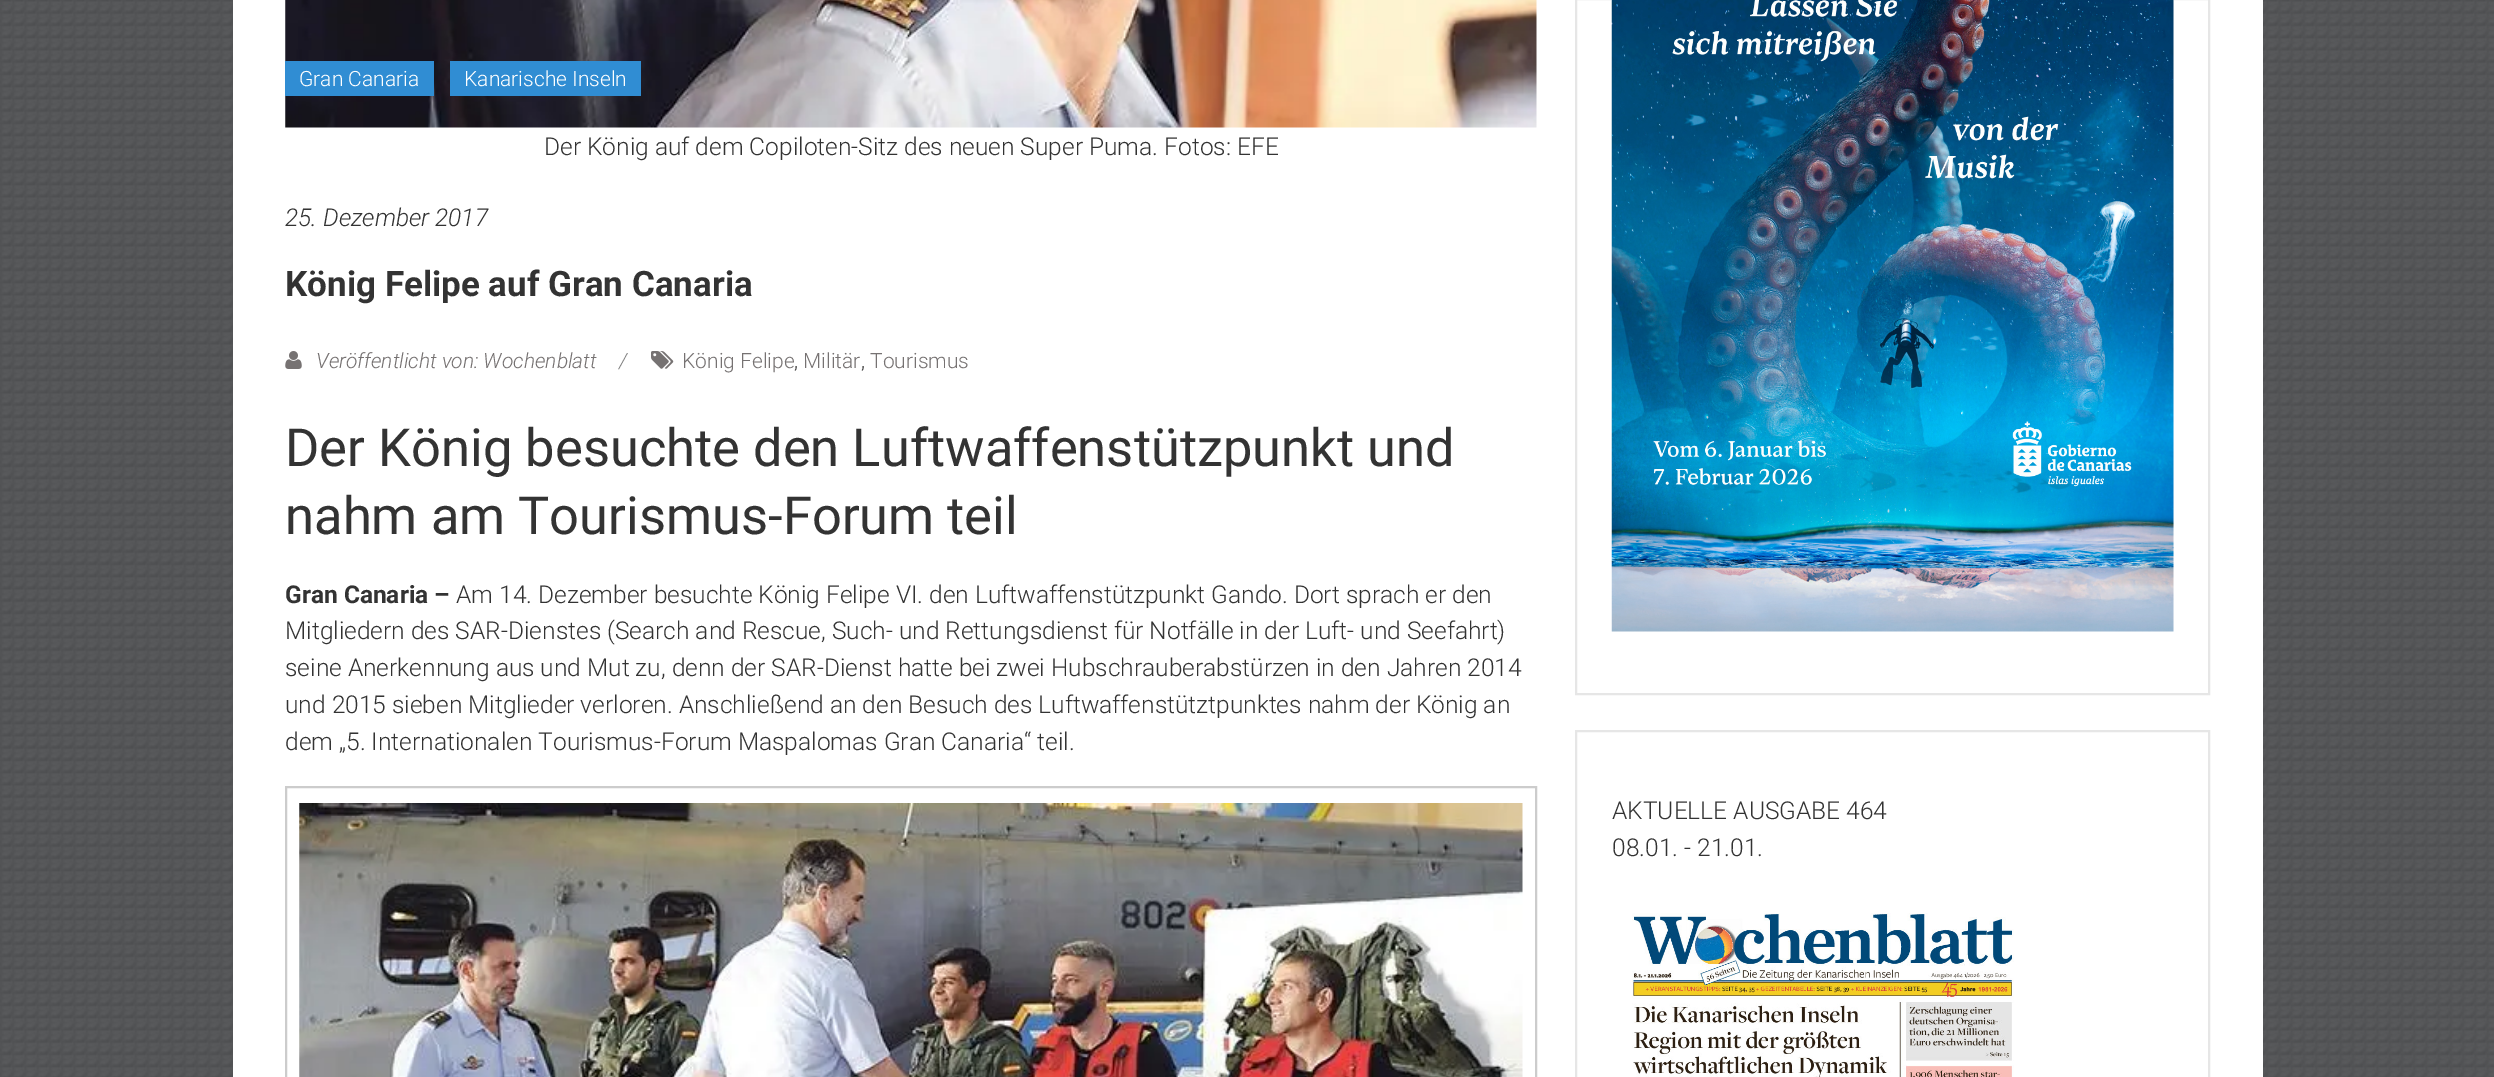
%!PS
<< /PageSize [2494 1077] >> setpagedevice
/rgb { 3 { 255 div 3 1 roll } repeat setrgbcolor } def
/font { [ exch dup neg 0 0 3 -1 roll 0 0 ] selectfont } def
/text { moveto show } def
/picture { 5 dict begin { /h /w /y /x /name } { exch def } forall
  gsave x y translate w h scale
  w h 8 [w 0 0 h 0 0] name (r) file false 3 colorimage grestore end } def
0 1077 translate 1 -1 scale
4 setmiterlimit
255 255 255 rgb
0 0 2494 1077 rectfill
(img_01.rgb) 0 0 2494 1077 picture
233 0 2030 1077 rectfill
(img_02.rgb) 285 0 1252 128 picture
48 141 211 rgb
285 61 149 35 rectfill
450 61 191 35 rectfill
(img_03.rgb) 285 351 17 18 picture
(img_04.rgb) 651 351 23 18 picture
204 204 204 rgb
2 setlinewidth
286 787 1250 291 rectstroke
(img_05.rgb) 299 803 1224 274 picture
230 230 230 rgb
1576 -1 633 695 rectstroke
(img_06.rgb) 1611 0 563 632 picture
1576 731 633 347 rectstroke
(img_07.rgb) 1632 913 382 164 picture
/Roboto-Light 21 font
255 255 255 rgb
(Gran Canaria) 299 86 text
(Kanarische Inseln) 464 86 text
/Roboto-Light 24.5 font
51 51 51 rgb
(Der König auf dem Copiloten-Sitz des neuen Super Puma. Fotos: EFE) 544 155 text
/Roboto-LightItalic 24.5 font
(25. Dezember 2017) 285 226 text
/Roboto-Bold 35 font
(König Felipe auf Gran Canaria) 285 296 text
/Roboto-LightItalic 21 font
118 114 114 rgb
(Veröffentlicht von: Wochenblatt) 316 368 text
128 128 128 rgb
(/) 619 368 text
/Roboto-Light 21 font
118 114 114 rgb
(König Felipe) 682 368 text
51 51 51 rgb
(,) 794 368 text
118 114 114 rgb
(Militär) 803 368 text
51 51 51 rgb
(,) 861 368 text
118 114 114 rgb
(Tourismus) 870 368 text
/Roboto-Regular 52.5 font
51 51 51 rgb
(Der König besuchte den Luftwaffenstützpunkt und) 285 466 text
(nahm am Tourismus-Forum teil) 285 534 text
/Roboto-Bold 24.5 font
(Gran Canaria –) 285 603 text
/Roboto-Light 24.5 font
(Am 14. Dezember besuchte König Felipe VI. den Luftwaffenstützpunkt Gando. Dort sprach er den) 456 603 text
(Mitgliedern des SAR-Dienstes \(Search and Rescue, Such- und Rettungsdienst für Notfälle in der Luft- und Seefahrt\)) 285 639 text
(seine Anerkennung aus und Mut zu, denn der SAR-Dienst hatte bei zwei Hubschrauberabstürzen in den Jahren 2014) 285 676 text
(und 2015 sieben Mitglieder verloren. Anschließend an den Besuch des Luftwaffenstütztpunktes nahm der König an) 285 713 text
(dem „5. Internationalen Tourismus-Forum Maspalomas Gran Canaria“ teil.) 285 750 text
(AKTUELLE AUSGABE 464) 1612 819 text
(08.01. - 21.01.) 1612 856 text
showpage
